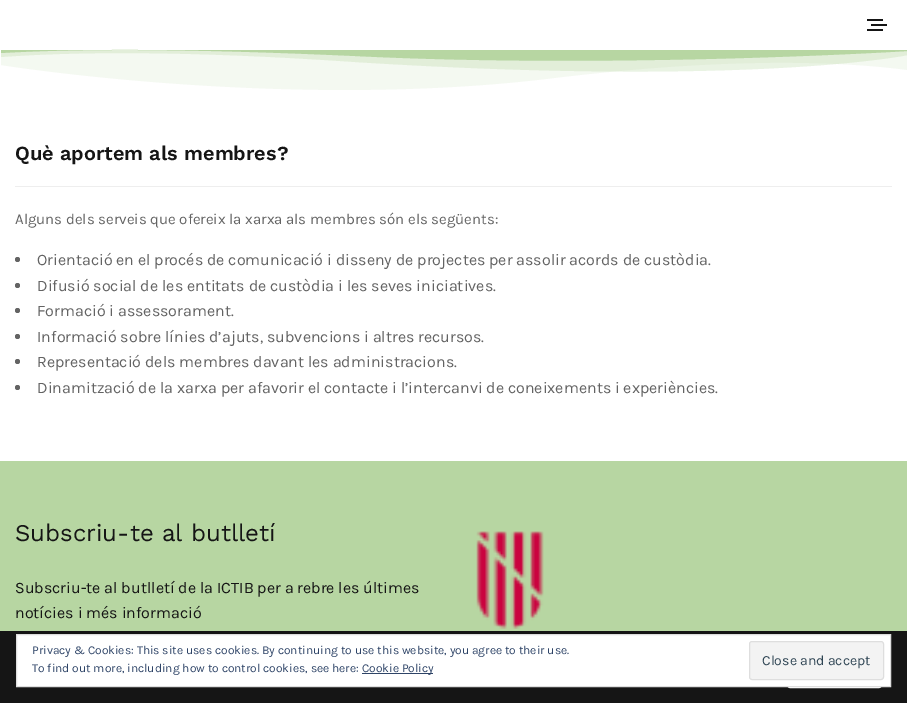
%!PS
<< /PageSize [907 703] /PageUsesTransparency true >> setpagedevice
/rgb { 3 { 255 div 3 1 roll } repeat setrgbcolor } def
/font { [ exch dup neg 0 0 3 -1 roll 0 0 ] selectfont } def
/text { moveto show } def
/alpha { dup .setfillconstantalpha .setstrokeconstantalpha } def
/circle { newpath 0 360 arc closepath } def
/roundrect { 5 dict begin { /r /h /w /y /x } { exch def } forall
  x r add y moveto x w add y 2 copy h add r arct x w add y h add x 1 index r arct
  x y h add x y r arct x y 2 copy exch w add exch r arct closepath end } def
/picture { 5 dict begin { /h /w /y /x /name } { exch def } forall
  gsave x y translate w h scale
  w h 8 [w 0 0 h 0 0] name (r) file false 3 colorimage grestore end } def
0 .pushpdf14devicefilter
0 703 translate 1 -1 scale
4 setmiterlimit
255 255 255 rgb
0 0 907 703 rectfill
21 21 21 rgb
867 19 16 2 rectfill
871 24 16 2 rectfill
867 29 16 2 rectfill
183 214 162 rgb
1 53 moveto 67 -4 180 -5 354 3 rcurveto 265 13 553 -5 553 -5 rcurveto -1 -1 rlineto -906 0 rlineto closepath fill
0.15 alpha
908 50 moveto -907 0 rlineto 0 15 rlineto 0 0 287 46 553 13 rcurveto 173 -21 286 -17 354 -8 rcurveto closepath fill
0.3 alpha
1 57 moveto 67 -5 180 -7 354 5 rcurveto 399 25 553 -7 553 -7 rcurveto -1 -5 rlineto -906 0 rlineto closepath fill
1 alpha
238 238 238 rgb
15 186 877 1 rectfill
99 99 99 rgb
17.5 259.5 2.5 circle fill
17.5 285.5 2.5 circle fill
17.5 310.5 2.5 circle fill
17.5 336.5 2.5 circle fill
17.5 361.5 2.5 circle fill
17.5 387.5 2.5 circle fill
183 214 162 rgb
0 461 907 170 rectfill
(img_01.rgb) 476 531 68 98 picture
21 21 21 rgb
0 631 907 72 rectfill
255 255 255 rgb
2 setlinewidth
788 647 93 40 2 roundrect stroke
16.5 634.5 moveto 874 0 rlineto 0 52 rlineto -874 0 rlineto closepath gsave fill grestore
222 222 222 rgb
1 setlinewidth
stroke
46 68 103 rgb
362 673 71 1 rectfill
243 243 243 rgb
749.5 641.5 134 38 2.5 roundrect gsave fill grestore
222 222 222 rgb
stroke
/WorkSans-SemiBold 20 font
21 21 21 rgb
(Què aportem als membres?) 15 160 text
/Karla-Regular 15 font
99 99 99 rgb
(Alguns dels serveis que ofereix la xarxa als membres són els següents:) 15 224 text
/Karla-Regular 16 font
(Orientació en el procés de comunicació i disseny de projectes per assolir acords de custòdia.) 37 265 text
(Difusió social de les entitats de custòdia i les seves iniciatives.) 37 291 text
(Formació i assessorament.) 37 316 text
(Informació sobre línies d’ajuts, subvencions i altres recursos.) 37 342 text
(Representació dels membres davant les administracions.) 37 367 text
(Dinamització de la xarxa per afavorir el contacte i l’intercanvi de coneixements i experiències.) 37 393 text
/WorkSans-Regular 24 font
21 21 21 rgb
(Subscriu-te al butlletí) 15 541 text
/Karla-Regular 16 font
(Subscriu-te al butlletí de la ICTIB per a rebre les últimes) 15 593 text
(notícies i més informació) 15 618 text
/Karla-Regular 12 font
46 68 103 rgb
(Privacy & Cookies: This site uses cookies. By continuing to use this website, you agree to their use.) 32 654 text
(To find out more, including how to control cookies, see here:) 32 672 text
(Cookie Policy) 362 672 text
/Karla-Regular 14 font
46 68 83 rgb
(Close and accept) 762 665 text
.poppdf14devicefilter showpage
